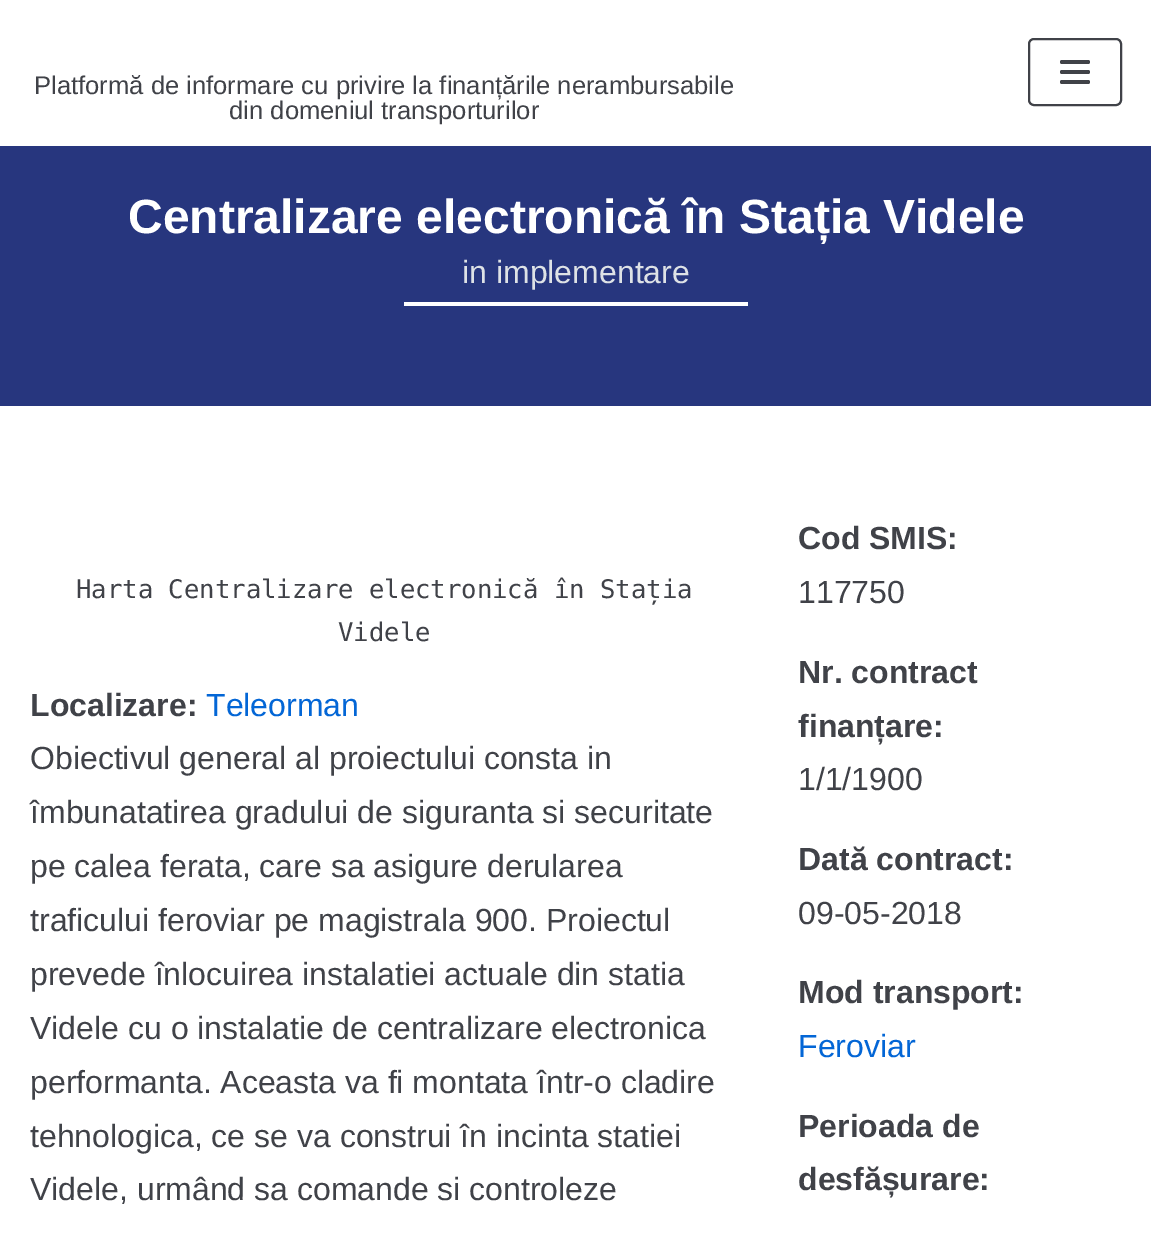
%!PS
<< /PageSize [1151 1235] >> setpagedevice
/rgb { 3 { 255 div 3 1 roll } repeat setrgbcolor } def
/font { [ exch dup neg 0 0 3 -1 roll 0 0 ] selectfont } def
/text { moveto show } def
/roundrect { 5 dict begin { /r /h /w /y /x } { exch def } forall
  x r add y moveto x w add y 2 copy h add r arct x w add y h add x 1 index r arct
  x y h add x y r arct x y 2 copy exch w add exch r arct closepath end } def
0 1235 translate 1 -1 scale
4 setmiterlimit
255 255 255 rgb
0 0 1151 1235 rectfill
39 54 126 rgb
0 146 1151 260 rectfill
64 66 72 rgb
2 setlinewidth
1029 39 92 66 5 roundrect stroke
1060 60 30 4 2 roundrect fill
1060 70 30 4 2 roundrect fill
1060 80 30 4 2 roundrect fill
255 255 255 rgb
404 302 344 4 rectfill
/LiberationSans-Regular 25.6 font
64 66 72 rgb
(Platformă de informare cu privire la finanțările nerambursabile) 34 94 text
(din domeniul transporturilor) 229 119 text
/LiberationSans-Bold 48 font
255 255 255 rgb
(Centralizare electronică în Stația Videle) 128 233 text
/LiberationSans-Regular 32 font
222 226 230 rgb
(in implementare) 462 283 text
/DejaVuSansMono-Regular 25.6 font
64 66 72 rgb
(Harta Centralizare electronică în Stația) 76 598 text
(Videle) 338 641 text
/LiberationSans-Bold 32 font
(Localizare:) 30 716 text
/LiberationSans-Regular 32 font
3 102 214 rgb
(Teleorman) 206 716 text
64 66 72 rgb
(Obiectivul general al proiectului consta in) 30 769 text
(îmbunatatirea gradului de siguranta si securitate) 30 823 text
(pe calea ferata, care sa asigure derularea) 30 877 text
(traficului feroviar pe magistrala 900. Proiectul) 30 931 text
(prevede înlocuirea instalatiei actuale din statia) 30 985 text
(Videle cu o instalatie de centralizare electronica) 30 1039 text
(performanta. Aceasta va fi montata într-o cladire) 30 1093 text
(tehnologica, ce se va construi în incinta statiei) 30 1147 text
(Videle, urmând sa comande si controleze) 30 1200 text
/LiberationSans-Bold 32 font
(Cod SMIS:) 798 549 text
/LiberationSans-Regular 32 font
(117750) 798 603 text
/LiberationSans-Bold 32 font
(Nr. contract) 798 683 text
(finanțare:) 798 737 text
/LiberationSans-Regular 32 font
(1/1/1900) 798 790 text
/LiberationSans-Bold 32 font
(Dată contract:) 798 870 text
/LiberationSans-Regular 32 font
(09-05-2018) 798 924 text
/LiberationSans-Bold 32 font
(Mod transport:) 798 1003 text
/LiberationSans-Regular 32 font
3 102 214 rgb
(Feroviar) 798 1057 text
/LiberationSans-Bold 32 font
64 66 72 rgb
(Perioada de) 798 1137 text
(desfășurare:) 798 1190 text
showpage
